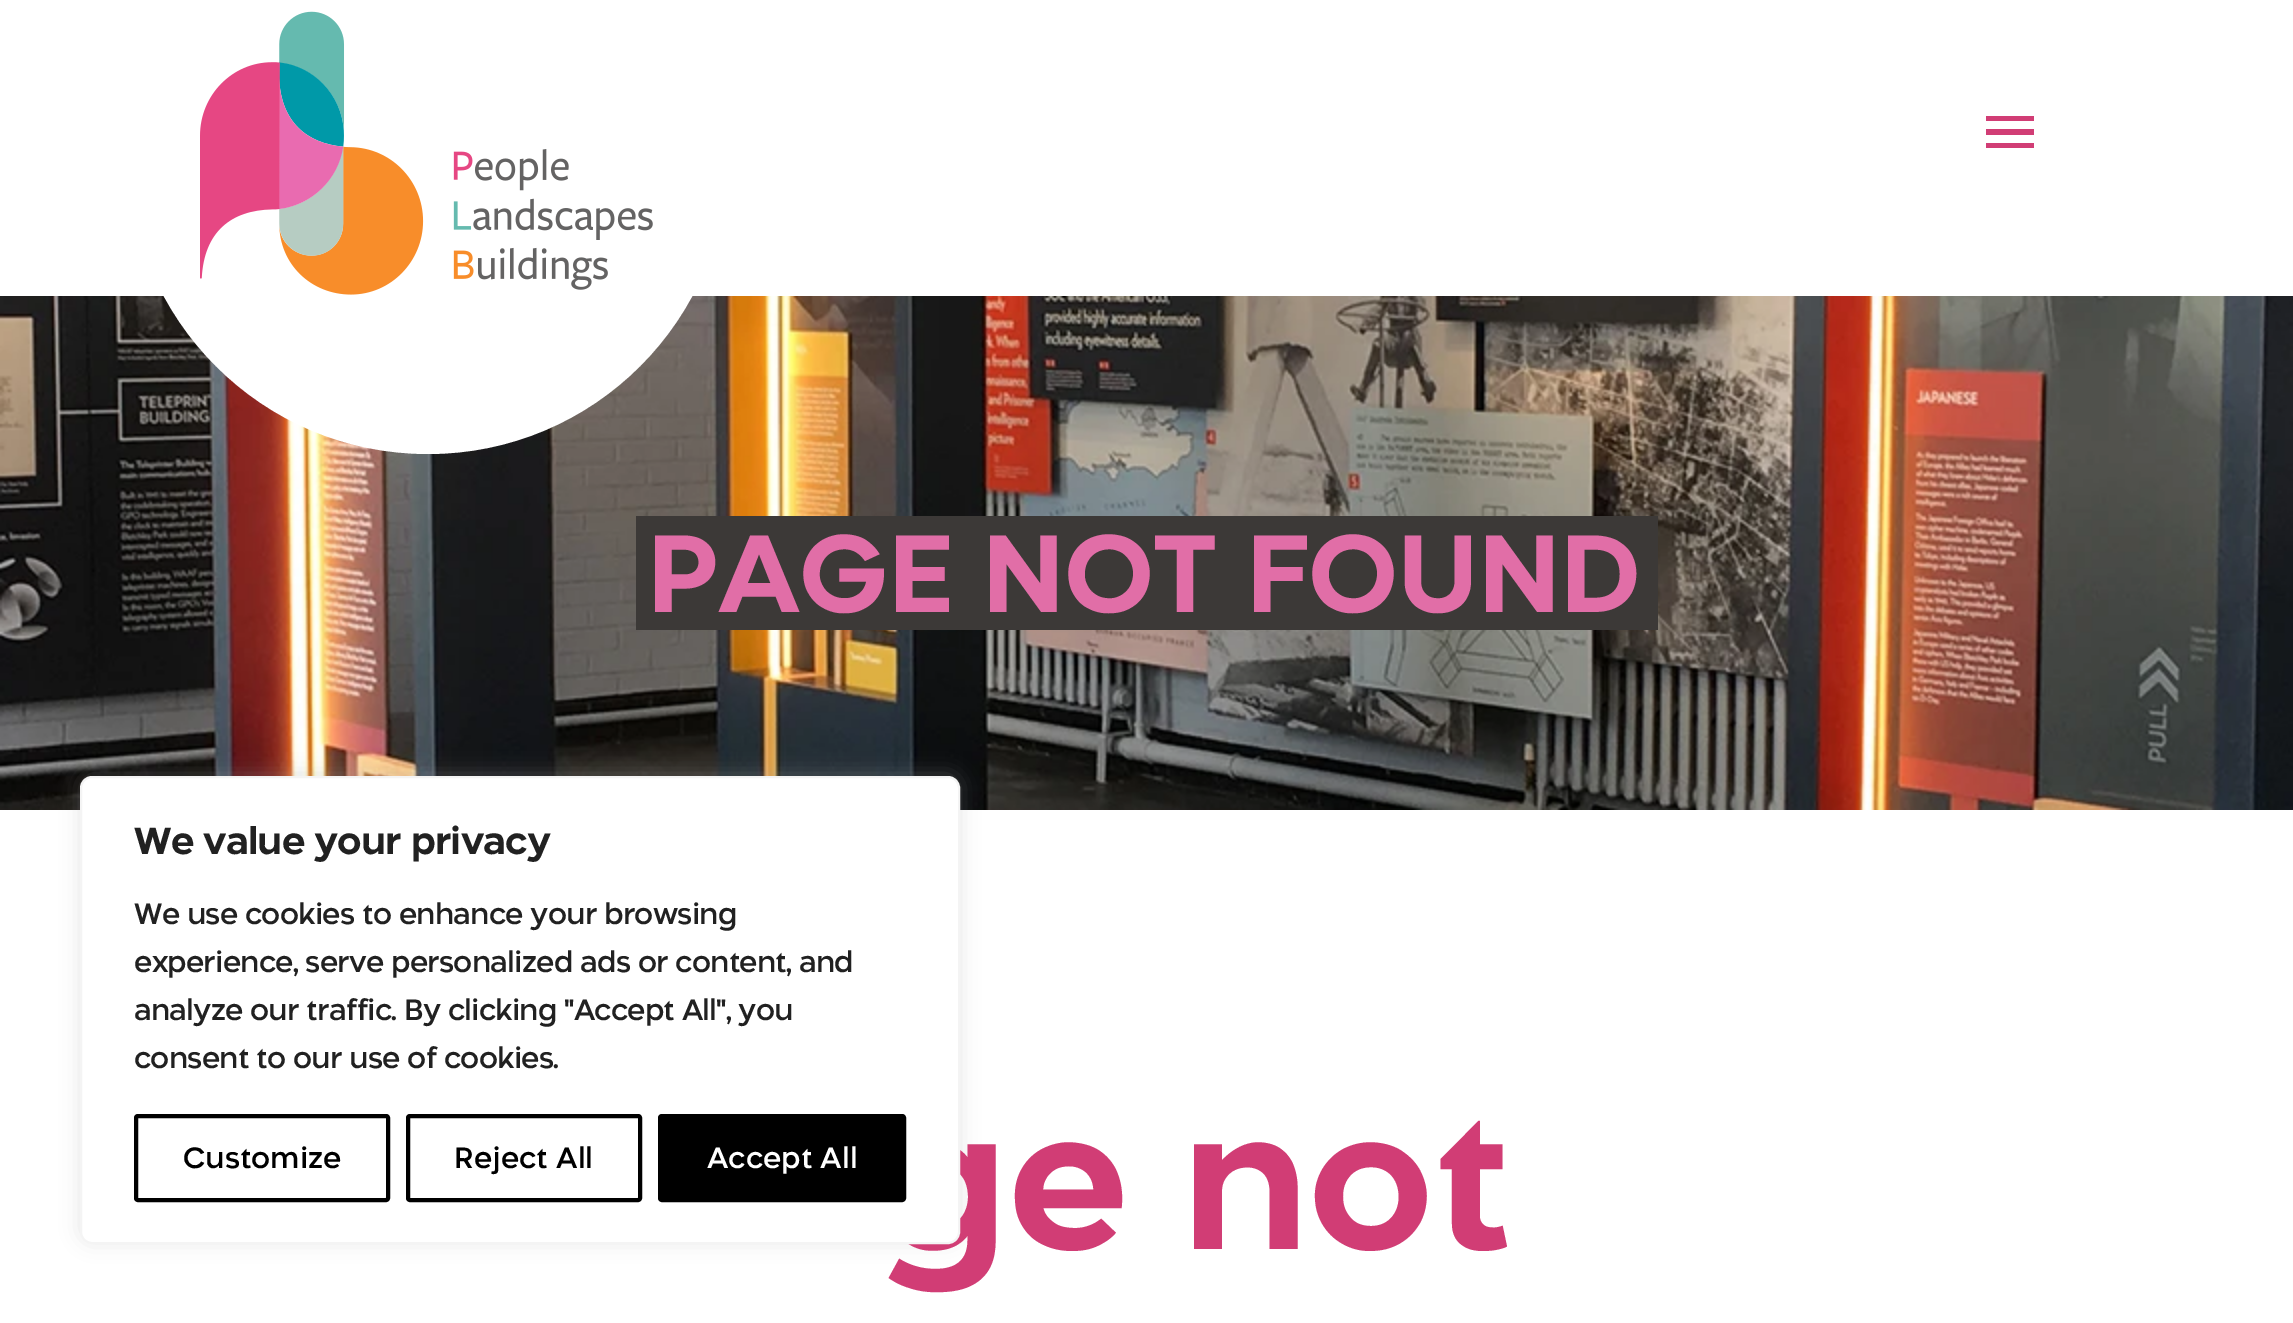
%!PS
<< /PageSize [2293 1323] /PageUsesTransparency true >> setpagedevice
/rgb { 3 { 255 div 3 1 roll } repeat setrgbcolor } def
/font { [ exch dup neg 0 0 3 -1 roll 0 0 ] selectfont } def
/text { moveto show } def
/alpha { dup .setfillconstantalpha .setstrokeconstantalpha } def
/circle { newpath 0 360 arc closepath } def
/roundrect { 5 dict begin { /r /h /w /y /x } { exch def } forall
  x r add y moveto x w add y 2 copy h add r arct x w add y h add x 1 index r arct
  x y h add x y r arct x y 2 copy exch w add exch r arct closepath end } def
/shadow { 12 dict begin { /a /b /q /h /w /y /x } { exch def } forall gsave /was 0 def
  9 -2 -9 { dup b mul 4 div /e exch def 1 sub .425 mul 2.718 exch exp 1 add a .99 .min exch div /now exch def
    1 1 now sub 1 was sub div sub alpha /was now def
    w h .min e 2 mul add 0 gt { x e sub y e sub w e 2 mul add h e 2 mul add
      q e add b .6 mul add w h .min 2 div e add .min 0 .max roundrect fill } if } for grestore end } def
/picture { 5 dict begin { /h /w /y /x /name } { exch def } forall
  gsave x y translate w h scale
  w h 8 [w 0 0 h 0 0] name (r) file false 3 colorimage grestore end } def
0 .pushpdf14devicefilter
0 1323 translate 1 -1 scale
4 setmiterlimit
255 255 255 rgb
0 0 2293 1323 rectfill
(img_02.rgb) 0 296 2293 514 picture
428 154 300 circle fill
(img_01.rgb) 200 11 453 284 picture
209 61 117 rgb
1986 116 moveto 48 0 rlineto 0 5 rlineto -48 0 rlineto 0 -5 rlineto 1986 129 moveto 48 0 rlineto 0 6 rlineto -48 0 rlineto 0 -6 rlineto 1986 143 moveto 48 0 rlineto 0 5 rlineto -48 0 rlineto closepath fill
60 57 55 rgb
636 516 1022 114 rectfill
172 171 171 rgb
80 774 880 468 12 10 0.3 shadow
/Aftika-Bold 104.75 font
225 110 167 rgb
647 612 moveto -0.8 0 (PAGE NOT FOUND) ashow
/Aftika-Bold 185 font
209 61 117 rgb
879 1249 moveto -0.8 0 (ge not) ashow
255 255 255 rgb
81 777 878 466 11 roundrect gsave fill grestore
244 244 244 rgb
2 setlinewidth
stroke
0 0 0 rgb
660 1116 244 84 2 roundrect gsave fill grestore
4 setlinewidth
stroke
/Aftika-SemiBold 28 font
255 255 255 rgb
(Accept All) 707 1168 text
0 0 0 rgb
408 1116 232 84 2 roundrect stroke
(Reject All) 454 1168 text
136 1116 252 84 2 roundrect stroke
(Customize) 183 1168 text
33 33 33 rgb
134 1068 moveto -0.8 0 (consent to our use of cookies.) ashow
134 1020 moveto -0.8 0 (analyze our traffic. By clicking "Accept All", you) ashow
134 972 moveto -0.8 0 (experience, serve personalized ads or content, and) ashow
134 924 moveto -0.8 0 (We use cookies to enhance your browsing) ashow
/Aftika-Bold 36 font
134 854 moveto -0.8 0 (We value your privacy) ashow
.poppdf14devicefilter showpage
